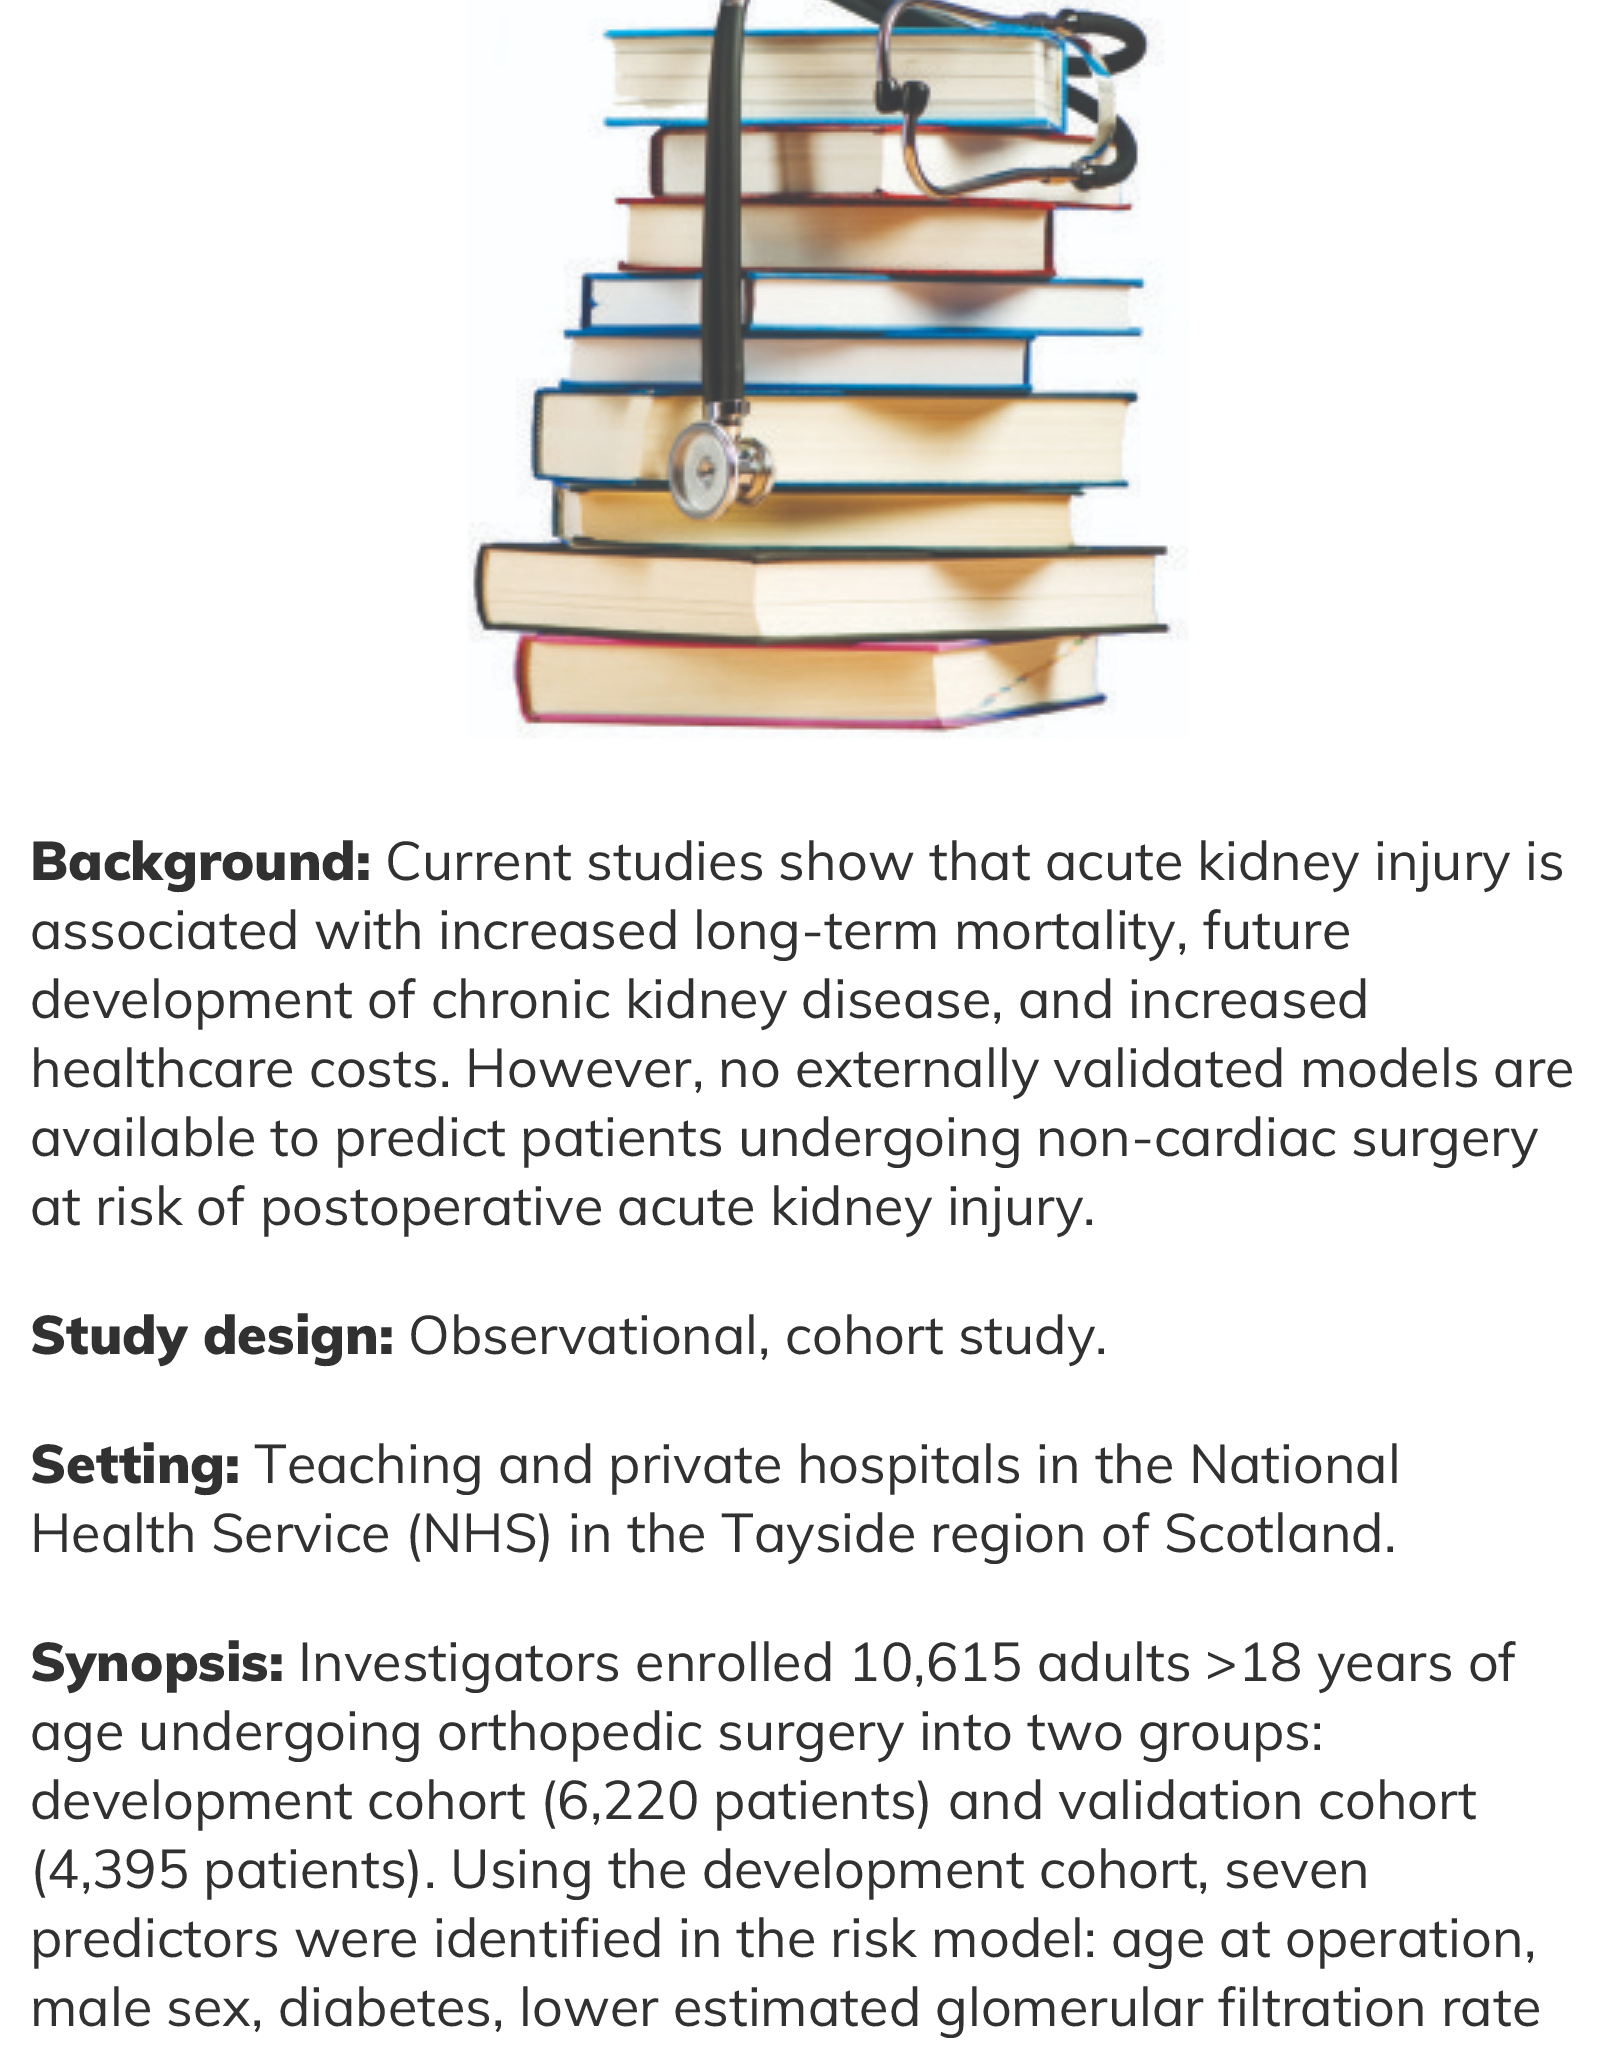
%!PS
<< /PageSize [1610 2067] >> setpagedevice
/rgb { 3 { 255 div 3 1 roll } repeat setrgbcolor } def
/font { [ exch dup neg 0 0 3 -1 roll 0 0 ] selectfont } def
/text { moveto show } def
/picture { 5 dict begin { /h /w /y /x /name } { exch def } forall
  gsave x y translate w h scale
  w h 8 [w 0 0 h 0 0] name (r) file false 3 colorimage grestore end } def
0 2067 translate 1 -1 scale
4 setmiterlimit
255 255 255 rgb
0 0 1610 2067 rectfill
(img_01.rgb) 467 0 722 739 picture
/Muli-Black 54 font
49 49 49 rgb
(Background:) 30 880 text
/Muli-Regular 54 font
(Current studies show that acute kidney injury is) 385 880 text
(associated with increased long-term mortality, future) 30 949 text
(development of chronic kidney disease, and increased) 30 1018 text
(healthcare costs. However, no externally validated models are) 30 1087 text
(available to predict patients undergoing non-cardiac surgery) 30 1156 text
(at risk of postoperative acute kidney injury.) 30 1225 text
/Muli-Black 54 font
(Study design:) 30 1354 text
/Muli-Regular 54 font
(Observational, cohort study.) 408 1354 text
/Muli-Black 54 font
(Setting:) 30 1483 text
/Muli-Regular 54 font
(Teaching and private hospitals in the National) 254 1483 text
(Health Service \(NHS\) in the Tayside region of Scotland.) 30 1552 text
/Muli-Black 54 font
(Synopsis:) 30 1681 text
/Muli-Regular 54 font
(Investigators enrolled 10,615 adults >18 years of) 298 1681 text
(age undergoing orthopedic surgery into two groups:) 30 1750 text
(development cohort \(6,220 patients\) and validation cohort) 30 1819 text
(\(4,395 patients\). Using the development cohort, seven) 30 1888 text
(predictors were identified in the risk model: age at operation,) 30 1957 text
(male sex, diabetes, lower estimated glomerular filtration rate) 30 2026 text
showpage
